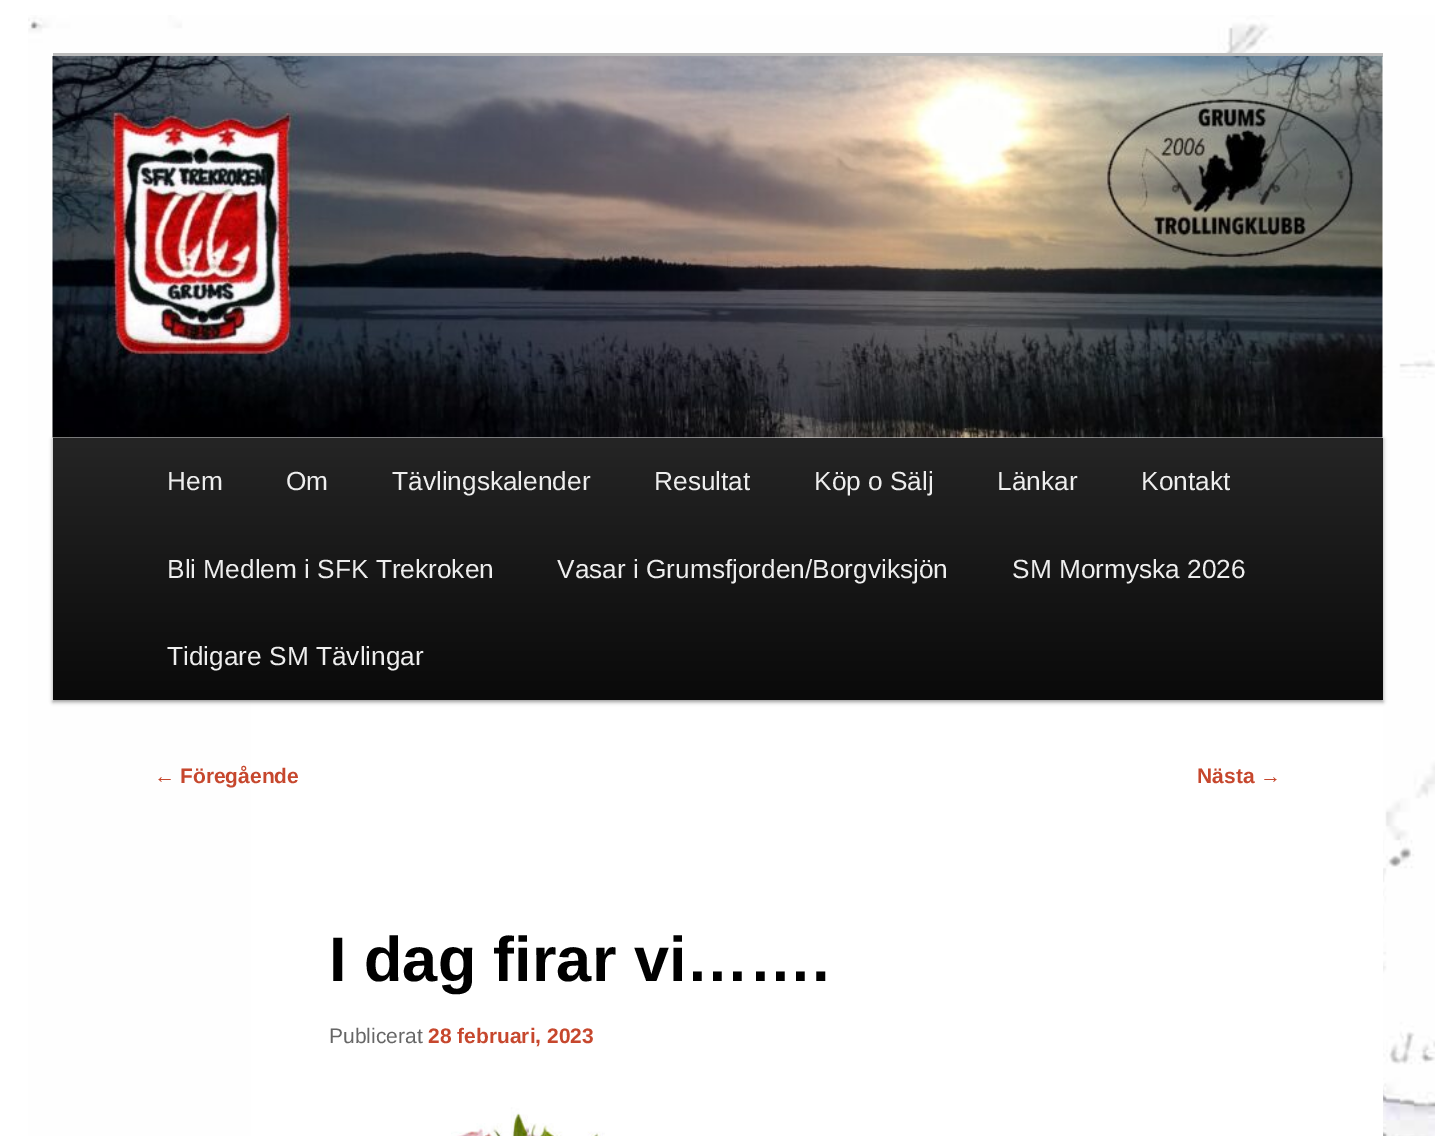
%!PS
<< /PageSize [1435 1136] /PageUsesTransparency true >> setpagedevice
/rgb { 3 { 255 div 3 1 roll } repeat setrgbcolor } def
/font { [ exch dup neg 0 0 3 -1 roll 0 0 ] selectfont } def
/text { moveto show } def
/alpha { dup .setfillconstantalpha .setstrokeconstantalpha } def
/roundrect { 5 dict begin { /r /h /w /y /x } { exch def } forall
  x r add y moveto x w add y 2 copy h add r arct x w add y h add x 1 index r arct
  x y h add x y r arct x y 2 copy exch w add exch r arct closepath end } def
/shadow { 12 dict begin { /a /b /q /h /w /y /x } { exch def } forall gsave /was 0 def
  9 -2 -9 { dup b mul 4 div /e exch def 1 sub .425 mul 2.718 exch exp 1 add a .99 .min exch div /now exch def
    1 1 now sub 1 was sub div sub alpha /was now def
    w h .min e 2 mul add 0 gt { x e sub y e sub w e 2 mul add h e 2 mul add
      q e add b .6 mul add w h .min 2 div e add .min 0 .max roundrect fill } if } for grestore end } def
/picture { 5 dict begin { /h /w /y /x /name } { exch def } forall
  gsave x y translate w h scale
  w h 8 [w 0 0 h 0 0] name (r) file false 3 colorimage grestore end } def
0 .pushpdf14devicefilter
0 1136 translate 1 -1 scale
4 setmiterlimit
255 255 255 rgb
0 0 1435 1136 rectfill
(img_01.rgb) 28 15 1407 1121 picture
251 57 1132 1079 rectfill
187 187 187 rgb
53 53 1330 4 rectfill
0 0 0 rgb
53 439 1330 263 0 2 0.4 shadow
(img_02.rgb) 52 56 1331 382 picture
gsave 53 438 moveto 1330 0 rlineto 0 262 rlineto -1330 0 rlineto closepath clip newpath
<< /ShadingType 2 /ColorSpace /DeviceRGB /Coords [718 437 718 700] /Extend [true true] /Function << /FunctionType 2 /Domain [0 1] /C0 [0.145 0.145 0.145] /C1 [0.039 0.039 0.039] /N 1 >> >> shfill grestore
(img_03.rgb) 451 1107 154 29 picture
/LiberationSans-Regular 26.25 font
238 238 238 rgb
(Hem) 167 490 text
(Om) 286 490 text
(Tävlingskalender) 392 490 text
(Resultat) 654 490 text
(Köp o Sälj) 814 490 text
(Länkar) 997 490 text
(Kontakt) 1141 490 text
(Bli Medlem i SFK Trekroken) 167 578 text
(Vasar i Grumsfjorden/Borgviksjön) 557 578 text
(SM Mormyska 2026) 1012 578 text
(Tidigare SM Tävlingar) 167 665 text
/LiberationSans-Regular 21 font
198 71 45 rgb
(←) 154 783 text
/LiberationSans-Bold 21 font
(Föregående) 180 783 text
(Nästa) 1197 783 text
/LiberationSans-Regular 21 font
(→) 1260 783 text
/LiberationSans-Bold 63 font
0 0 0 rgb
(I dag firar vi…….) 329 981 text
/LiberationSans-Regular 21 font
102 102 102 rgb
(Publicerat) 329 1043 text
/LiberationSans-Bold 21 font
198 71 45 rgb
(28 februari, 2023) 428 1043 text
.poppdf14devicefilter showpage
